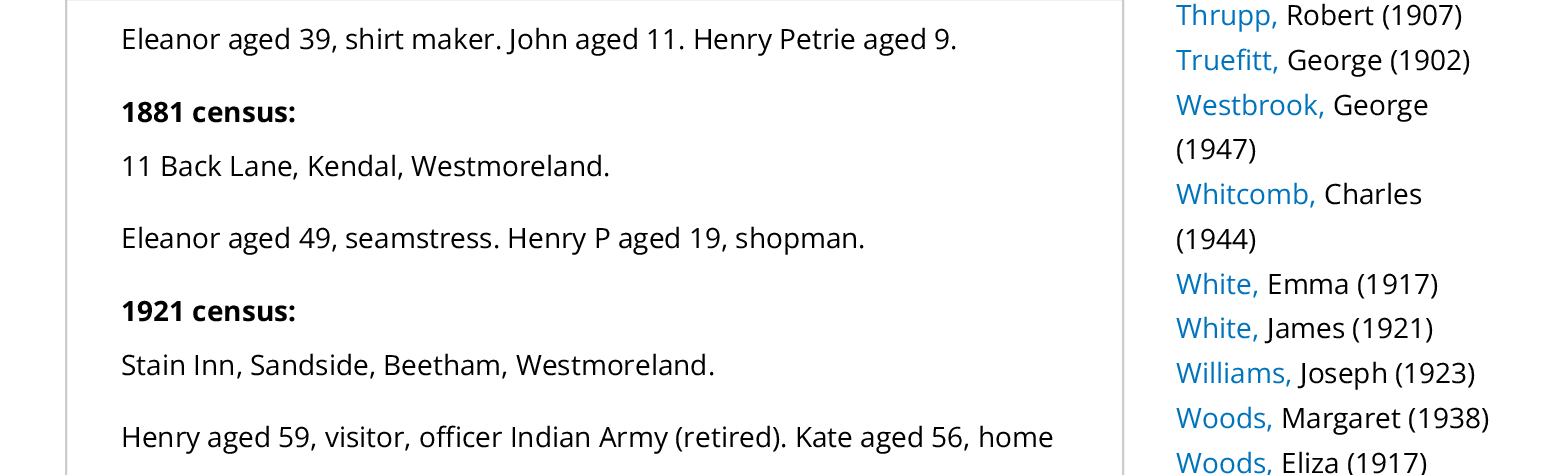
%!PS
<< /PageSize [1559 475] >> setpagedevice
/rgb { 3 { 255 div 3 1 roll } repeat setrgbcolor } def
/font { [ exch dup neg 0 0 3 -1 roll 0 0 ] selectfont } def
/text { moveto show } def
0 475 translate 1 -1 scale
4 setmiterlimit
255 255 255 rgb
0 0 1559 475 rectfill
204 204 204 rgb
2 setlinewidth
66 -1 1057 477 rectstroke
/OpenSans-Regular 28 font
0 0 0 rgb
(Eleanor aged 39, shirt maker. John aged 11. Henry Petrie aged 9.) 121 49 text
/OpenSans-Bold 28 font
(1881 census:) 121 122 text
/OpenSans-Regular 28 font
(11 Back Lane, Kendal, Westmoreland.) 121 176 text
(Eleanor aged 49, seamstress. Henry P aged 19, shopman.) 121 248 text
/OpenSans-Bold 28 font
(1921 census:) 121 321 text
/OpenSans-Regular 28 font
(Stain Inn, Sandside, Beetham, Westmoreland.) 121 375 text
(Henry aged 59, visitor, officer Indian Army \(retired\). Kate aged 56, home) 121 447 text
0 115 189 rgb
(Thrupp,) 1176 25 text
0 0 0 rgb
(Robert \(1907\)) 1286 25 text
0 115 189 rgb
(Truefitt,) 1176 70 text
0 0 0 rgb
(George \(1902\)) 1287 70 text
0 115 189 rgb
(Westbrook,) 1176 115 text
0 0 0 rgb
(George) 1333 115 text
(\(1947\)) 1176 159 text
0 115 189 rgb
(Whitcomb,) 1176 204 text
0 0 0 rgb
(Charles) 1324 204 text
(\(1944\)) 1176 249 text
0 115 189 rgb
(White,) 1176 294 text
0 0 0 rgb
(Emma \(1917\)) 1267 294 text
0 115 189 rgb
(White,) 1176 338 text
0 0 0 rgb
(James \(1921\)) 1267 338 text
0 115 189 rgb
(Williams,) 1176 383 text
0 0 0 rgb
(Joseph \(1923\)) 1300 383 text
0 115 189 rgb
(Woods,) 1176 428 text
0 0 0 rgb
(Margaret \(1938\)) 1281 428 text
0 115 189 rgb
(Woods,) 1176 473 text
0 0 0 rgb
(Eliza \(1917\)) 1281 473 text
showpage
